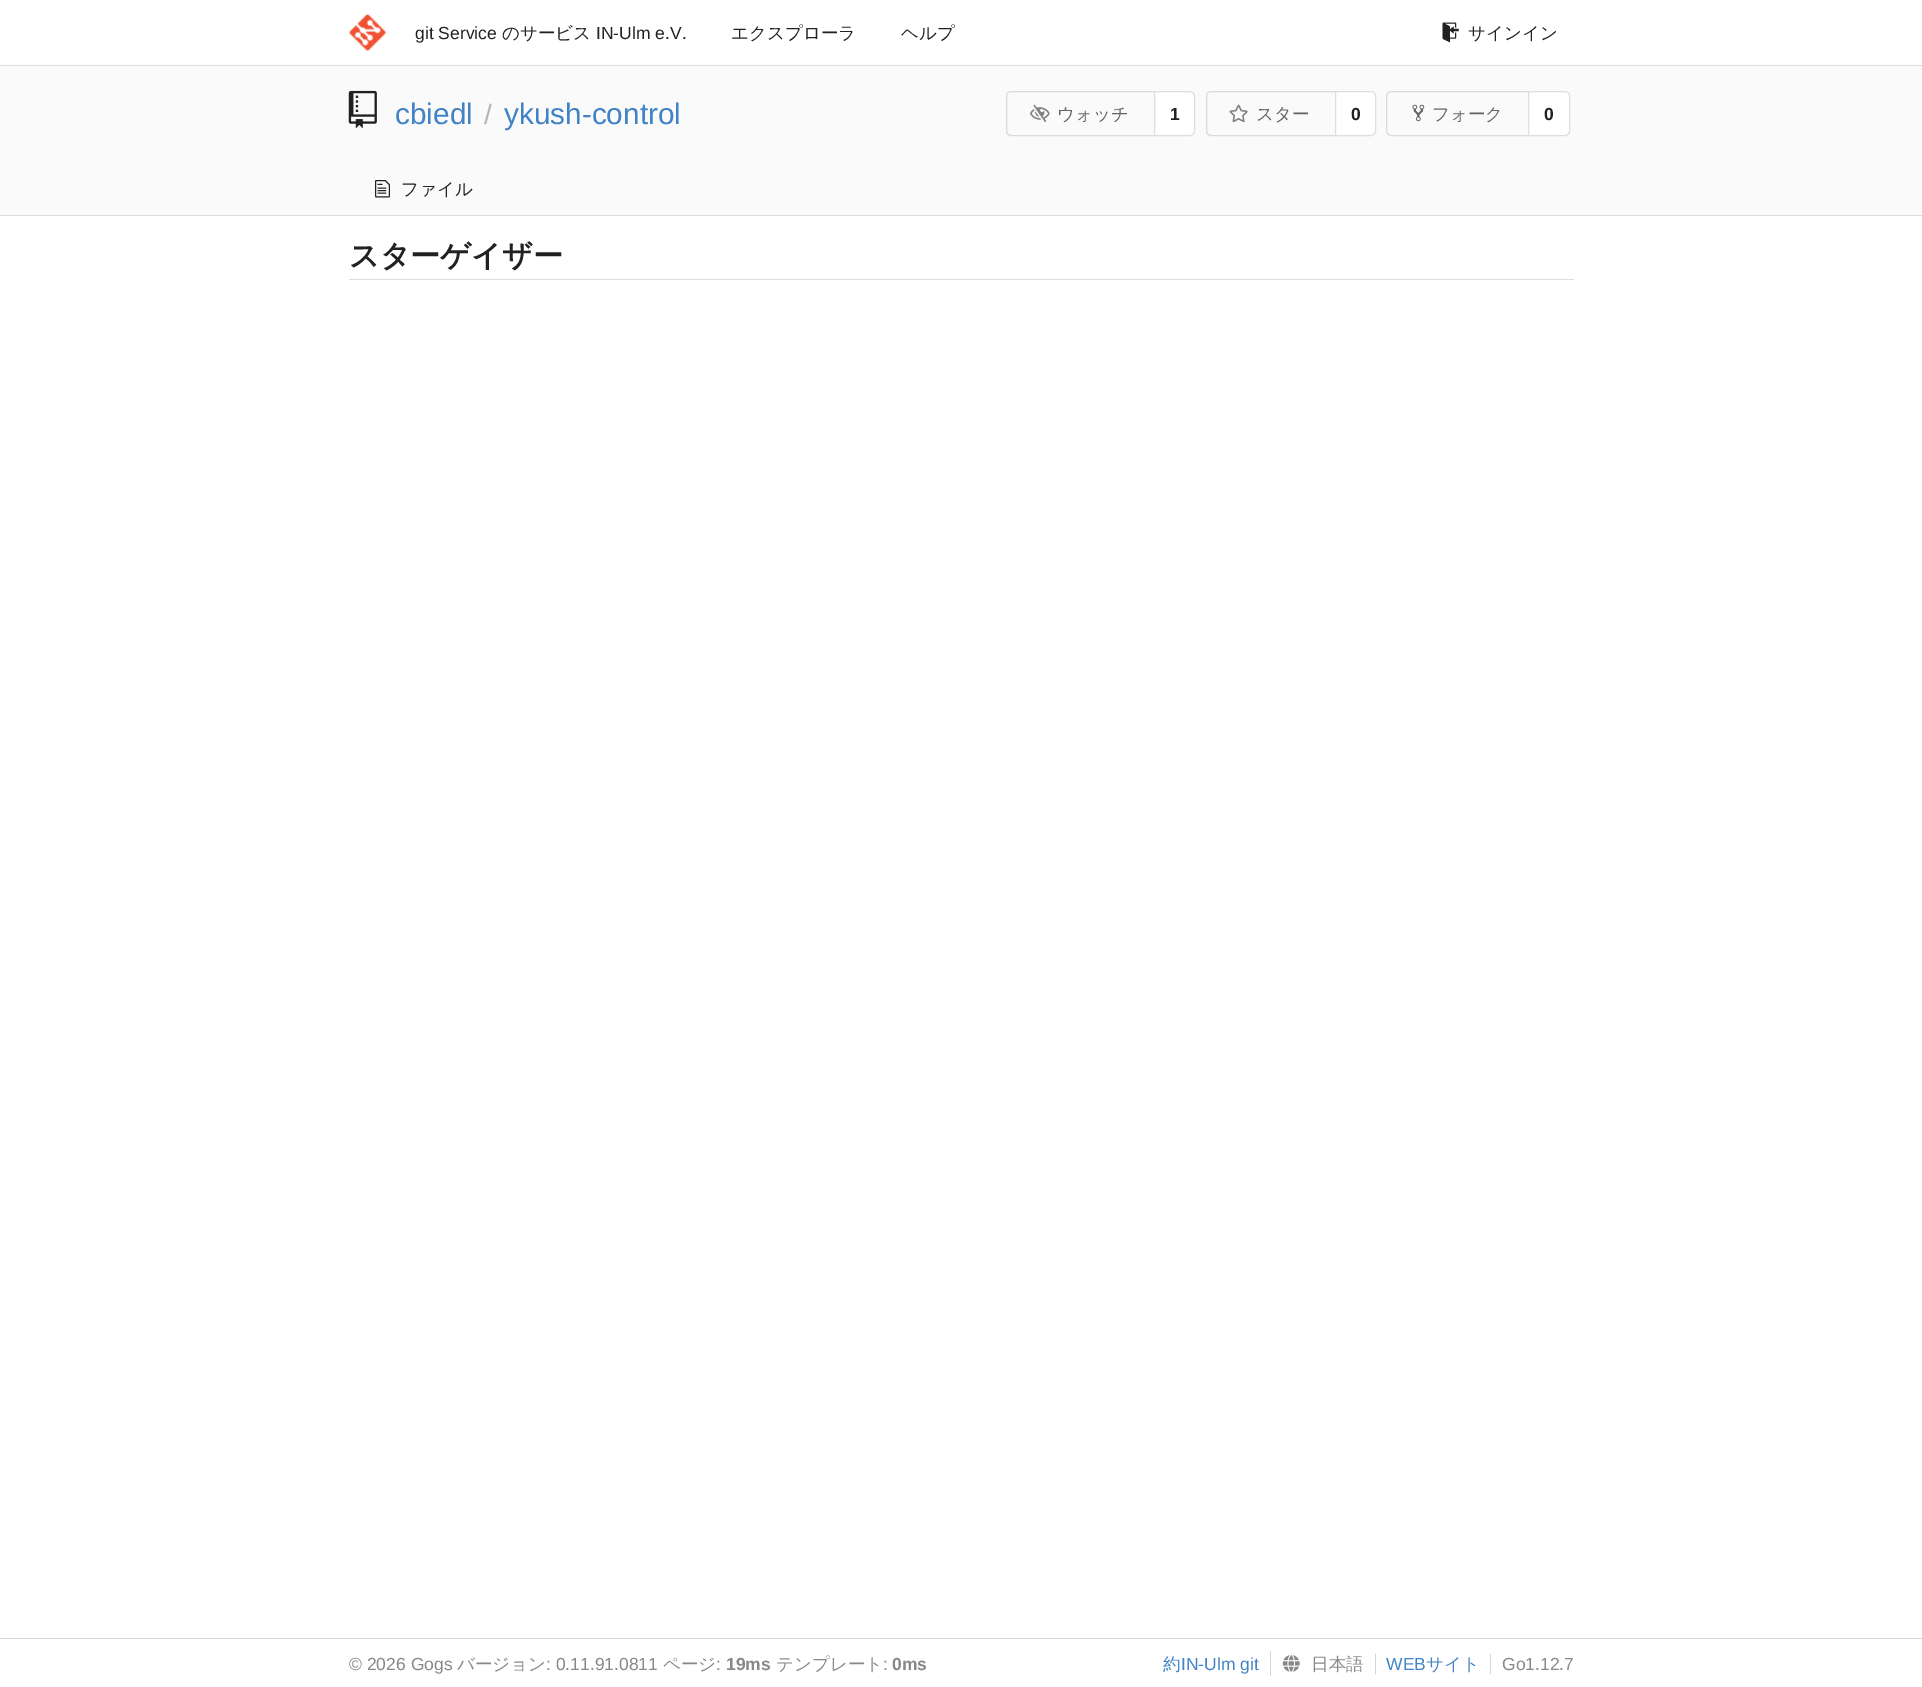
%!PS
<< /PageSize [1922 1687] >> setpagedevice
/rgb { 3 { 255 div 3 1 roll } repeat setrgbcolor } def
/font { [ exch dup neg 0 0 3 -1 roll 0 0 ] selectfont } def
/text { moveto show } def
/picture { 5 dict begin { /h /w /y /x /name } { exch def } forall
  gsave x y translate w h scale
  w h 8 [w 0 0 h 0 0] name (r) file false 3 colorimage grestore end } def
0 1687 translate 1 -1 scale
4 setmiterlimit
255 255 255 rgb
0 0 1922 1687 rectfill
221 221 221 rgb
0 65 1922 1 rectfill
(img_01.rgb) 349 14 37 37 picture
(img_02.rgb) 1442 22 17 21 picture
250 250 250 rgb
0 66 1922 149 rectfill
(img_03.rgb) 348 90 29 39 picture
218 218 218 rgb
1011 91.5 moveto 143.5 0 rlineto 0 44 rlineto -143.5 0 rlineto -2.5 0 -4.5 -2 -4.5 -4.5 rcurveto 0 -35 rlineto 0 -2.5 2 -4.5 4.5 -4.5 rcurveto closepath stroke
(img_04.rgb) 1030 104 20 19 picture
255 255 255 rgb
1154.5 91.5 moveto 35.5 0 rlineto 2.5 0 4.5 2 4.5 4.5 rcurveto 0 35 rlineto 0 2.5 -2 4.5 -4.5 4.5 rcurveto -35.5 0 rlineto closepath gsave fill grestore
222 222 222 rgb
stroke
218 218 218 rgb
1211 91.5 moveto 124.5 0 rlineto 0 44 rlineto -124.5 0 rlineto -2.5 0 -4.5 -2 -4.5 -4.5 rcurveto 0 -35 rlineto 0 -2.5 2 -4.5 4.5 -4.5 rcurveto closepath stroke
(img_05.rgb) 1229 104 19 19 picture
255 255 255 rgb
1335.5 91.5 moveto 35.5 0 rlineto 2.5 0 4.5 2 4.5 4.5 rcurveto 0 35 rlineto 0 2.5 -2 4.5 -4.5 4.5 rcurveto -35.5 0 rlineto closepath gsave fill grestore
222 222 222 rgb
stroke
218 218 218 rgb
1391 91.5 moveto 137.5 0 rlineto 0 44 rlineto -137.5 0 rlineto -2.5 0 -4.5 -2 -4.5 -4.5 rcurveto 0 -35 rlineto 0 -2.5 2 -4.5 4.5 -4.5 rcurveto closepath stroke
(img_06.rgb) 1412 104 13 18 picture
255 255 255 rgb
1528.5 91.5 moveto 36.5 0 rlineto 2.5 0 4.5 2 4.5 4.5 rcurveto 0 35 rlineto 0 2.5 -2 4.5 -4.5 4.5 rcurveto -36.5 0 rlineto closepath gsave fill grestore
222 222 222 rgb
stroke
(img_07.rgb) 375 180 15 18 picture
218 218 218 rgb
0 215 1922 1 rectfill
222 222 222 rgb
349 279 1225 1 rectfill
214 214 214 rgb
0 1638 1922 1 rectfill
1270 1651 1 25 rectfill
(img_08.rgb) 1282 1655 18 17 picture
1375 1654 1 20 rectfill
1490 1654 1 20 rectfill
/LiberationSans-Regular 17.5 font
33 33 33 rgb
(git Service) 415 39 text
/WenQuanYiZenHei-Medium 17.5 font
(のサービス) 502 39 text
/LiberationSans-Regular 17.5 font
(IN-Ulm e.V.) 596 39 text
/WenQuanYiZenHei-Medium 17.5 font
(エクスプローラ) 731 39 text
(ヘルプ) 901 39 text
(サインイン) 1468 39 text
/LiberationSans-Regular 29.75 font
65 131 196 rgb
(cbiedl) 395 124 text
/LiberationSans-Regular 28 font
180 180 180 rgb
(/) 484 124 text
/LiberationSans-Regular 29.75 font
65 131 196 rgb
(ykush-control) 504 124 text
/WenQuanYiZenHei-Medium 17.5 font
100 100 100 rgb
(ウォッチ) 1057 120 text
/LiberationSans-Bold 17.5 font
33 33 33 rgb
(1) 1170 120 text
/WenQuanYiZenHei-Medium 17.5 font
100 100 100 rgb
(スター) 1256 120 text
/LiberationSans-Bold 17.5 font
33 33 33 rgb
(0) 1351 120 text
/WenQuanYiZenHei-Medium 17.5 font
100 100 100 rgb
(フォーク) 1432 120 text
/LiberationSans-Bold 17.5 font
33 33 33 rgb
(0) 1544 120 text
/WenQuanYiZenHei-Medium 17.5 font
(ファイル) 401 195 text
/WenQuanYiZenHei-Bold 30 font
(スターゲイザー) 349 266 text
/LiberationSans-Regular 17.5 font
136 136 136 rgb
(© 2026 Gogs) 349 1670 text
/WenQuanYiZenHei-Medium 17.5 font
(バージョン) 457 1670 text
/LiberationSans-Regular 17.5 font
(: 0.11.91.0811) 546 1670 text
/WenQuanYiZenHei-Medium 17.5 font
(ページ) 663 1670 text
/LiberationSans-Regular 17.5 font
(:) 716 1670 text
/LiberationSans-Bold 17.5 font
(19ms) 726 1670 text
/WenQuanYiZenHei-Medium 17.5 font
(テンプレート) 776 1670 text
/LiberationSans-Regular 17.5 font
(:) 883 1670 text
/LiberationSans-Bold 17.5 font
(0ms) 892 1670 text
/WenQuanYiZenHei-Medium 17.5 font
65 131 196 rgb
(約) 1163 1670 text
/LiberationSans-Regular 17.5 font
(IN-Ulm git) 1181 1670 text
/WenQuanYiZenHei-Medium 17.5 font
136 136 136 rgb
(日本語) 1311 1670 text
/LiberationSans-Regular 17.5 font
65 131 196 rgb
(WEB) 1386 1670 text
/WenQuanYiZenHei-Medium 17.5 font
(サイト) 1426 1670 text
/LiberationSans-Regular 17.5 font
136 136 136 rgb
(Go1.12.7) 1502 1670 text
showpage
